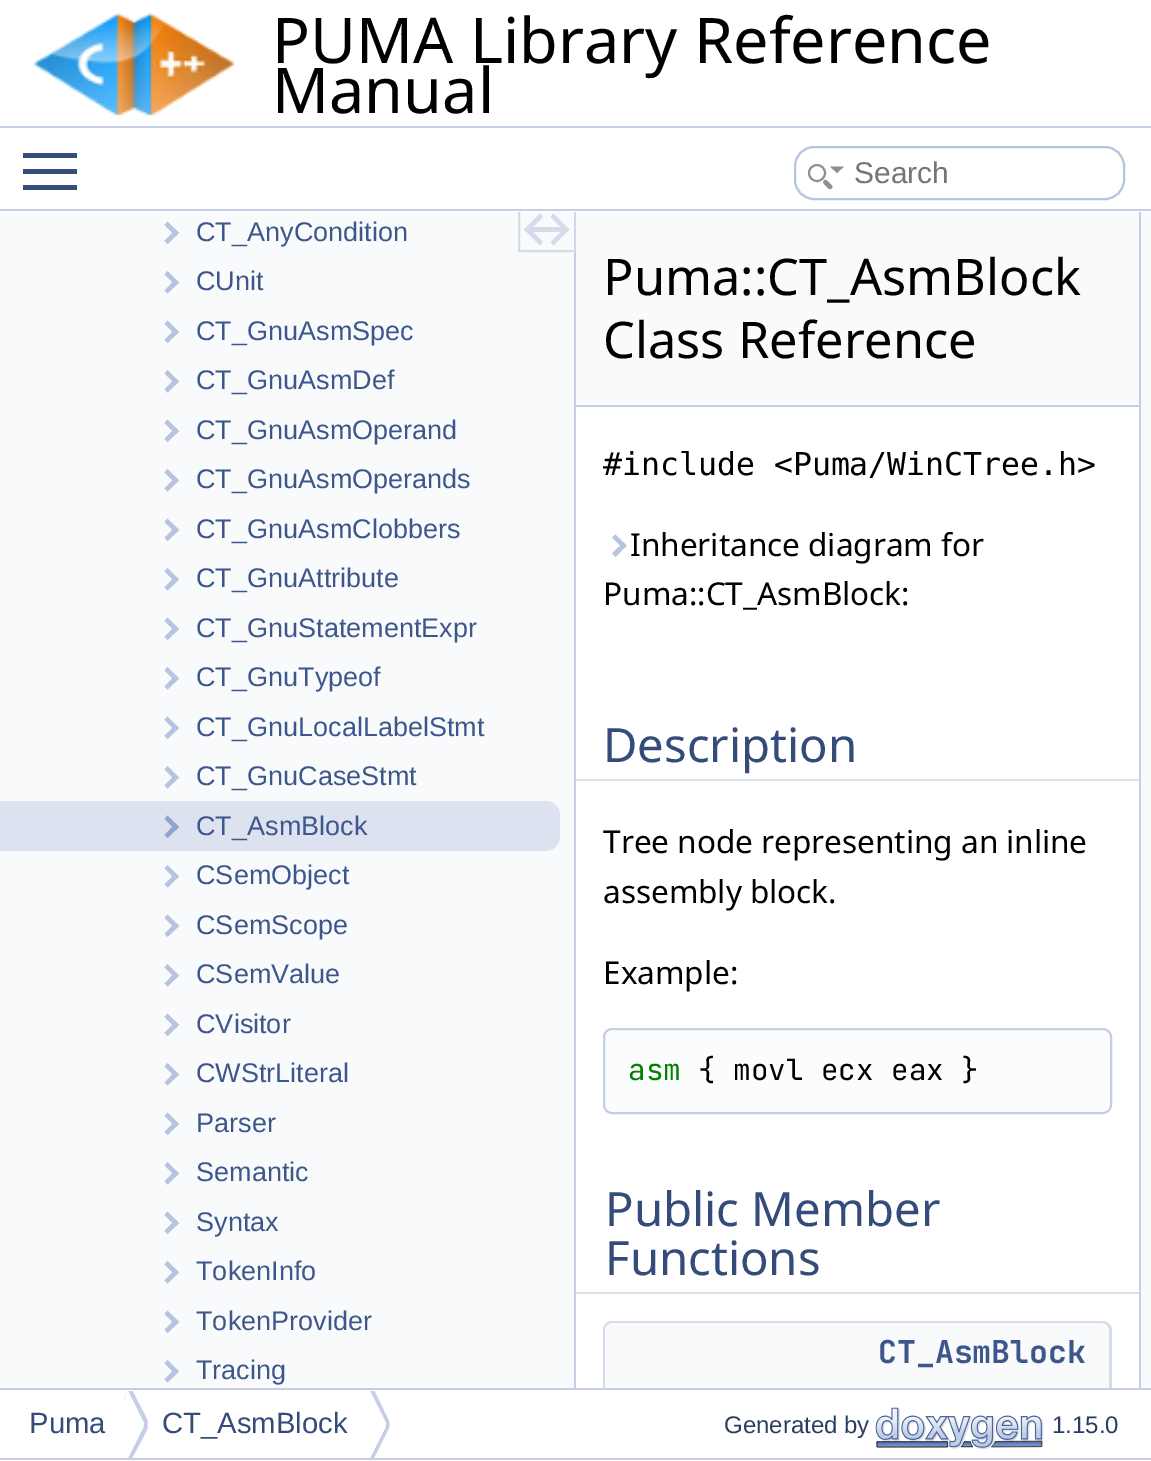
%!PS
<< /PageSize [1151 1461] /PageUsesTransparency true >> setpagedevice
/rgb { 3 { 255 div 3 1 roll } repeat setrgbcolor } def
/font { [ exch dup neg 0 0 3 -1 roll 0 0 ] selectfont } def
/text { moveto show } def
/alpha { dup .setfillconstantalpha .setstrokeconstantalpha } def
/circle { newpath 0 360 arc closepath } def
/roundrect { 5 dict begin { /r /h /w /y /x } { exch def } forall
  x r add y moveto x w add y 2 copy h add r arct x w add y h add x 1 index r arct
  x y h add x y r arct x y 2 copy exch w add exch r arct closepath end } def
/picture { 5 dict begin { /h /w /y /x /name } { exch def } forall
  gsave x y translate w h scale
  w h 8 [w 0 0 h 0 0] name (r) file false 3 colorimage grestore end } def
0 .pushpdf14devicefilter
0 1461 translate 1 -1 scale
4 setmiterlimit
255 255 255 rgb
0 0 1151 1461 rectfill
196 207 229 rgb
0 126 1151 2 rectfill
(img_01.rgb) 33 13 202 103 picture
54 77 124 rgb
23 169 54 5 rectfill
23 153 54 5 rectfill
23 185 54 5 rectfill
182 196 223 rgb
2 setlinewidth
795 147 329 52 19 roundrect stroke
144 144 144 rgb
817 173 8 circle stroke
830 166.5 moveto 14 0 rlineto -7 6.5 rlineto closepath 824 180.5 moveto 2 -2 4 1.5 5.5 2.5 rcurveto 1 1.5 4.5 3.5 2 5.5 rcurveto -2 2 -4 -1 -5.5 -2.5 rcurveto -1 -1 -4.5 -3.5 -2 -5.5 rcurveto closepath fill
196 207 229 rgb
0 209 1151 2 rectfill
249 250 252 rgb
0 212 574 1176 rectfill
196 207 229 rgb
574 252 2 1136 rectfill
233 237 245 rgb
574 212 2 40 rectfill
182 196 223 rgb
164.5 225 moveto 3 -3.5 rlineto 11.5 11.5 rlineto -3.5 3 rlineto closepath fill
164.5 241 moveto 11 -11.5 rlineto 3.5 3.5 rlineto -11.5 11 rlineto closepath 164.5 274.5 moveto 3 -3.5 rlineto 11.5 11.5 rlineto -3.5 3 rlineto closepath fill
164.5 290.5 moveto 11 -11.5 rlineto 3.5 3.5 rlineto -11.5 11 rlineto closepath 164.5 324 moveto 3 -3.5 rlineto 11.5 11.5 rlineto -3.5 3 rlineto closepath fill
164.5 340 moveto 11 -11.5 rlineto 3.5 3.5 rlineto -11.5 11 rlineto closepath 164.5 373.5 moveto 3 -3.5 rlineto 11.5 11.5 rlineto -3.5 3 rlineto closepath fill
164.5 389.5 moveto 11 -11.5 rlineto 3.5 3.5 rlineto -11.5 11 rlineto closepath 164.5 423 moveto 3 -3.5 rlineto 11.5 11.5 rlineto -3.5 3 rlineto closepath fill
164.5 439 moveto 11 -11.5 rlineto 3.5 3.5 rlineto -11.5 11 rlineto closepath 164.5 472.5 moveto 3 -3.5 rlineto 11.5 11.5 rlineto -3.5 3 rlineto closepath fill
164.5 488.5 moveto 11 -11.5 rlineto 3.5 3.5 rlineto -11.5 11 rlineto closepath 164.5 522 moveto 3 -3.5 rlineto 11.5 11.5 rlineto -3.5 3 rlineto closepath fill
164.5 538 moveto 11 -11.5 rlineto 3.5 3.5 rlineto -11.5 11 rlineto closepath 164.5 571.5 moveto 3 -3.5 rlineto 11.5 11.5 rlineto -3.5 3 rlineto closepath fill
164.5 587.5 moveto 11 -11.5 rlineto 3.5 3.5 rlineto -11.5 11 rlineto closepath 164.5 621 moveto 3 -3.5 rlineto 11.5 11.5 rlineto -3.5 3 rlineto closepath fill
164.5 637 moveto 11 -11.5 rlineto 3.5 3.5 rlineto -11.5 11 rlineto closepath 164.5 670.5 moveto 3 -3.5 rlineto 11.5 11.5 rlineto -3.5 3 rlineto closepath fill
164.5 686.5 moveto 11 -11.5 rlineto 3.5 3.5 rlineto -11.5 11 rlineto closepath 164.5 720 moveto 3 -3.5 rlineto 11.5 11.5 rlineto -3.5 3 rlineto closepath fill
164.5 736 moveto 11 -11.5 rlineto 3.5 3.5 rlineto -11.5 11 rlineto closepath 164.5 769.5 moveto 3 -3.5 rlineto 11.5 11.5 rlineto -3.5 3 rlineto closepath fill
164.5 785.5 moveto 11 -11.5 rlineto 3.5 3.5 rlineto -11.5 11 rlineto closepath fill
220 226 239 rgb
0 801 moveto 546 0 rlineto 7.5 0 14 6.5 14 14 rcurveto 0 22 rlineto 0 7.5 -6.5 14 -14 14 rcurveto -546 0 rlineto closepath fill
144 165 206 rgb
164.5 819 moveto 3 -3.5 rlineto 11.5 11.5 rlineto -3.5 3 rlineto closepath fill
164.5 835 moveto 11 -11.5 rlineto 3.5 3.5 rlineto -11.5 11 rlineto closepath fill
182 196 223 rgb
164.5 868.5 moveto 3 -3.5 rlineto 11.5 11.5 rlineto -3.5 3 rlineto closepath fill
164.5 884.5 moveto 11 -11.5 rlineto 3.5 3.5 rlineto -11.5 11 rlineto closepath 164.5 918 moveto 3 -3.5 rlineto 11.5 11.5 rlineto -3.5 3 rlineto closepath fill
164.5 934 moveto 11 -11.5 rlineto 3.5 3.5 rlineto -11.5 11 rlineto closepath 164.5 967.5 moveto 3 -3.5 rlineto 11.5 11.5 rlineto -3.5 3 rlineto closepath fill
164.5 983.5 moveto 11 -11.5 rlineto 3.5 3.5 rlineto -11.5 11 rlineto closepath 164.5 1017 moveto 3 -3.5 rlineto 11.5 11.5 rlineto -3.5 3 rlineto closepath fill
164.5 1033 moveto 11 -11.5 rlineto 3.5 3.5 rlineto -11.5 11 rlineto closepath 164.5 1066.5 moveto 3 -3.5 rlineto 11.5 11.5 rlineto -3.5 3 rlineto closepath fill
164.5 1082.5 moveto 11 -11.5 rlineto 3.5 3.5 rlineto -11.5 11 rlineto closepath 164.5 1116 moveto 3 -3.5 rlineto 11.5 11.5 rlineto -3.5 3 rlineto closepath fill
164.5 1132 moveto 11 -11.5 rlineto 3.5 3.5 rlineto -11.5 11 rlineto closepath 164.5 1165.5 moveto 3 -3.5 rlineto 11.5 11.5 rlineto -3.5 3 rlineto closepath fill
164.5 1181.5 moveto 11 -11.5 rlineto 3.5 3.5 rlineto -11.5 11 rlineto closepath 164.5 1215 moveto 3 -3.5 rlineto 11.5 11.5 rlineto -3.5 3 rlineto closepath fill
164.5 1231 moveto 11 -11.5 rlineto 3.5 3.5 rlineto -11.5 11 rlineto closepath 164.5 1264.5 moveto 3 -3.5 rlineto 11.5 11.5 rlineto -3.5 3 rlineto closepath fill
164.5 1280.5 moveto 11 -11.5 rlineto 3.5 3.5 rlineto -11.5 11 rlineto closepath 164.5 1314 moveto 3 -3.5 rlineto 11.5 11.5 rlineto -3.5 3 rlineto closepath fill
164.5 1330 moveto 11 -11.5 rlineto 3.5 3.5 rlineto -11.5 11 rlineto closepath 164.5 1363.5 moveto 3 -3.5 rlineto 11.5 11.5 rlineto -3.5 3 rlineto closepath fill
164.5 1379.5 moveto 11 -11.5 rlineto 3.5 3.5 rlineto -11.5 11 rlineto closepath fill
gsave
0 212 590 1176 rectclip
0.7 alpha
196 207 229 rgb
519 210 56 41 rectstroke
grestore
212 220 236 rgb
524 229.5 moveto 16 -16 rlineto 3 3.5 rlineto -15.5 15.5 rlineto closepath fill
524 229.5 moveto 3.5 -3 rlineto 15.5 15.5 rlineto -3 3.5 rlineto closepath 550.5 217 moveto 3 -3.5 rlineto 16 16 rlineto -3.5 3 rlineto closepath fill
550.5 242 moveto 15.5 -15.5 rlineto 3.5 3 rlineto -16 16 rlineto closepath fill
529 227 36 5 rectfill
249 250 252 rgb
576 212 563 193 rectfill
196 207 229 rgb
576 405 563 2 rectfill
182 196 223 rgb
612 537.5 moveto 3.5 -3 rlineto 11 11 rlineto -3 3.5 rlineto closepath fill
612 553.5 moveto 11.5 -11 rlineto 3 3 rlineto -11 11.5 rlineto closepath fill
217 224 238 rgb
576 704 moveto 0 77 rlineto 509 0 rlineto 0 -3 rlineto -482 0 rlineto 0 -74 rlineto closepath fill
630 778 moveto 0 3 rlineto 509 0 rlineto 0 -77 rlineto -27 0 rlineto 0 74 rlineto closepath fill
255 255 255 rgb
576 702 moveto 0 77 rlineto 509 0 rlineto 0 -1 rlineto -482 0 rlineto 0 -76 rlineto closepath fill
630 778 moveto 0 1 rlineto 509 0 rlineto 0 -77 rlineto -27 0 rlineto 0 76 rlineto closepath fill
251 252 253 rgb
604 1029 507 84 8 roundrect gsave fill grestore
196 207 229 rgb
stroke
217 224 238 rgb
576 1168 moveto 0 126 rlineto 504 0 rlineto 0 -2 rlineto -475 0 rlineto 0 -124 rlineto closepath fill
635 1292 moveto 0 2 rlineto 504 0 rlineto 0 -126 rlineto -30 0 rlineto 0 124 rlineto closepath fill
255 255 255 rgb
576 1166 moveto 0 126 rlineto 504 0 rlineto -475 0 rlineto 0 -126 rlineto closepath fill
635 1292 moveto 504 0 rlineto 0 -126 rlineto -30 0 rlineto 0 126 rlineto closepath fill
249 250 252 rgb
612 1321 moveto 263 0 rlineto 0 67 rlineto -272 0 rlineto 0 -58 rlineto 0 -5 4 -9 9 -9 rcurveto closepath fill
gsave
576 212 563 1176 rectclip
213 221 236 rgb
612 1321 moveto 263 0 rlineto 0 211 rlineto -272 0 rlineto 0 -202 rlineto 0 -5 4 -9 9 -9 rcurveto closepath 612 1323 moveto 263 0 rlineto 0 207 rlineto -270 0 rlineto 0 -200 rlineto 0 -4 3 -7 7 -7 rcurveto closepath eofill
grestore
875 1321 moveto 228 0 rlineto 5 0 9 4 9 9 rcurveto 0 58 rlineto -237 0 rlineto closepath fill
gsave
576 212 563 1176 rectclip
213 221 236 rgb
875 1321 moveto 227 0 rlineto 5 0 10 4 10 9 rcurveto 0 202 rlineto -237 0 rlineto closepath 875 1323 moveto 227 0 rlineto 4 0 7 3 7 7 rcurveto 0 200 rlineto -234 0 rlineto closepath eofill
grestore
1141 212 10 1176 rectfill
196 207 229 rgb
1139 212 2 1176 rectfill
0 1388 1151 2 rectfill
0 1458 1151 2 rectfill
gsave
0 1391 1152 67 rectclip
130 1386 moveto -2 5 -5 10 -6 15 rcurveto 4 -10 rlineto 15 30 rlineto 1 2 1 5 0 7 rcurveto -15 30 rlineto 2 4 rlineto 17 -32 rlineto 1 -3 1 -8 0 -11 rcurveto closepath fill
grestore
255 255 255 rgb
128 1391 moveto 15 30 rlineto 1 2 1 5 0 7 rcurveto -15 30 rlineto -9 -19 -9 -49 0 -67 rcurveto closepath fill
gsave
0 1391 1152 67 rectclip
196 207 229 rgb
372 1386 moveto -2 5 rlineto 15 30 rlineto 1 2 1 5 0 7 rcurveto -15 30 rlineto 2 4 rlineto 16 -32 rlineto 2 -3 2 -8 0 -11 rcurveto closepath fill
grestore
370 1391 moveto 15 30 rlineto 1 2 1 5 0 7 rcurveto -15 30 rlineto -10 -19 -10 -49 0 -67 rcurveto closepath fill
(img_02.rgb) 875 1407 169 43 picture
/NotoSans-Regular 63 font
0 0 0 rgb
(PUMA Library Reference) 272 63 text
(Manual) 272 113 text
/LiberationSans-Regular 30 font
117 117 117 rgb
(Search) 854 183 text
/LiberationSans-Regular 27 font
61 87 140 rgb
(CT_AnyCondition) 196 241 text
(CUnit) 196 290 text
(CT_GnuAsmSpec) 196 340 text
(CT_GnuAsmDef) 196 389 text
(CT_GnuAsmOperand) 196 439 text
(CT_GnuAsmOperands) 196 488 text
(CT_GnuAsmClobbers) 196 538 text
(CT_GnuAttribute) 196 587 text
(CT_GnuStatementExpr) 196 637 text
(CT_GnuTypeof) 196 686 text
(CT_GnuLocalLabelStmt) 196 736 text
(CT_GnuCaseStmt) 196 785 text
(CT_AsmBlock) 196 835 text
(CSemObject) 196 884 text
(CSemScope) 196 934 text
(CSemValue) 196 983 text
(CVisitor) 196 1033 text
(CWStrLiteral) 196 1082 text
(Parser) 196 1132 text
(Semantic) 196 1181 text
(Syntax) 196 1231 text
(TokenInfo) 196 1280 text
(TokenProvider) 196 1330 text
(Tracing) 196 1379 text
/NotoSans-Regular 50.5 font
0 0 0 rgb
(Puma::CT_AsmBlock) 603 295 text
(Class Reference) 603 358 text
/DejaVuSansMono-Regular 31.5 font
(#include <Puma/WinCTree.h>) 603 475 text
/NotoSans-Regular 31.5 font
(Inheritance diagram for) 630 556 text
(Puma::CT_AsmBlock:) 603 605 text
/NotoSans-Regular 47.25 font
53 76 123 rgb
(Description) 603 762 text
/NotoSans-Regular 31.5 font
0 0 0 rgb
(Tree node representing an inline) 603 853 text
(assembly block.) 603 903 text
(Example:) 603 984 text
/JetBrainsMono-Regular 29.25 font
0 128 0 rgb
(asm) 628 1080 text
0 0 0 rgb
({ movl ecx eax }) 698 1080 text
/NotoSans-Regular 47.25 font
53 76 123 rgb
(Public Member) 605 1226 text
(Functions) 605 1275 text
/JetBrainsMono-Bold 31.5 font
61 87 140 rgb
(CT_AsmBlock) 878 1363 text
/LiberationSans-Regular 29.25 font
53 76 123 rgb
(Puma) 29 1433 text
(CT_AsmBlock) 162 1433 text
/LiberationSans-Regular 24 font
42 61 97 rgb
(Generated by) 724 1433 text
(1.15.0) 1052 1433 text
.poppdf14devicefilter showpage
